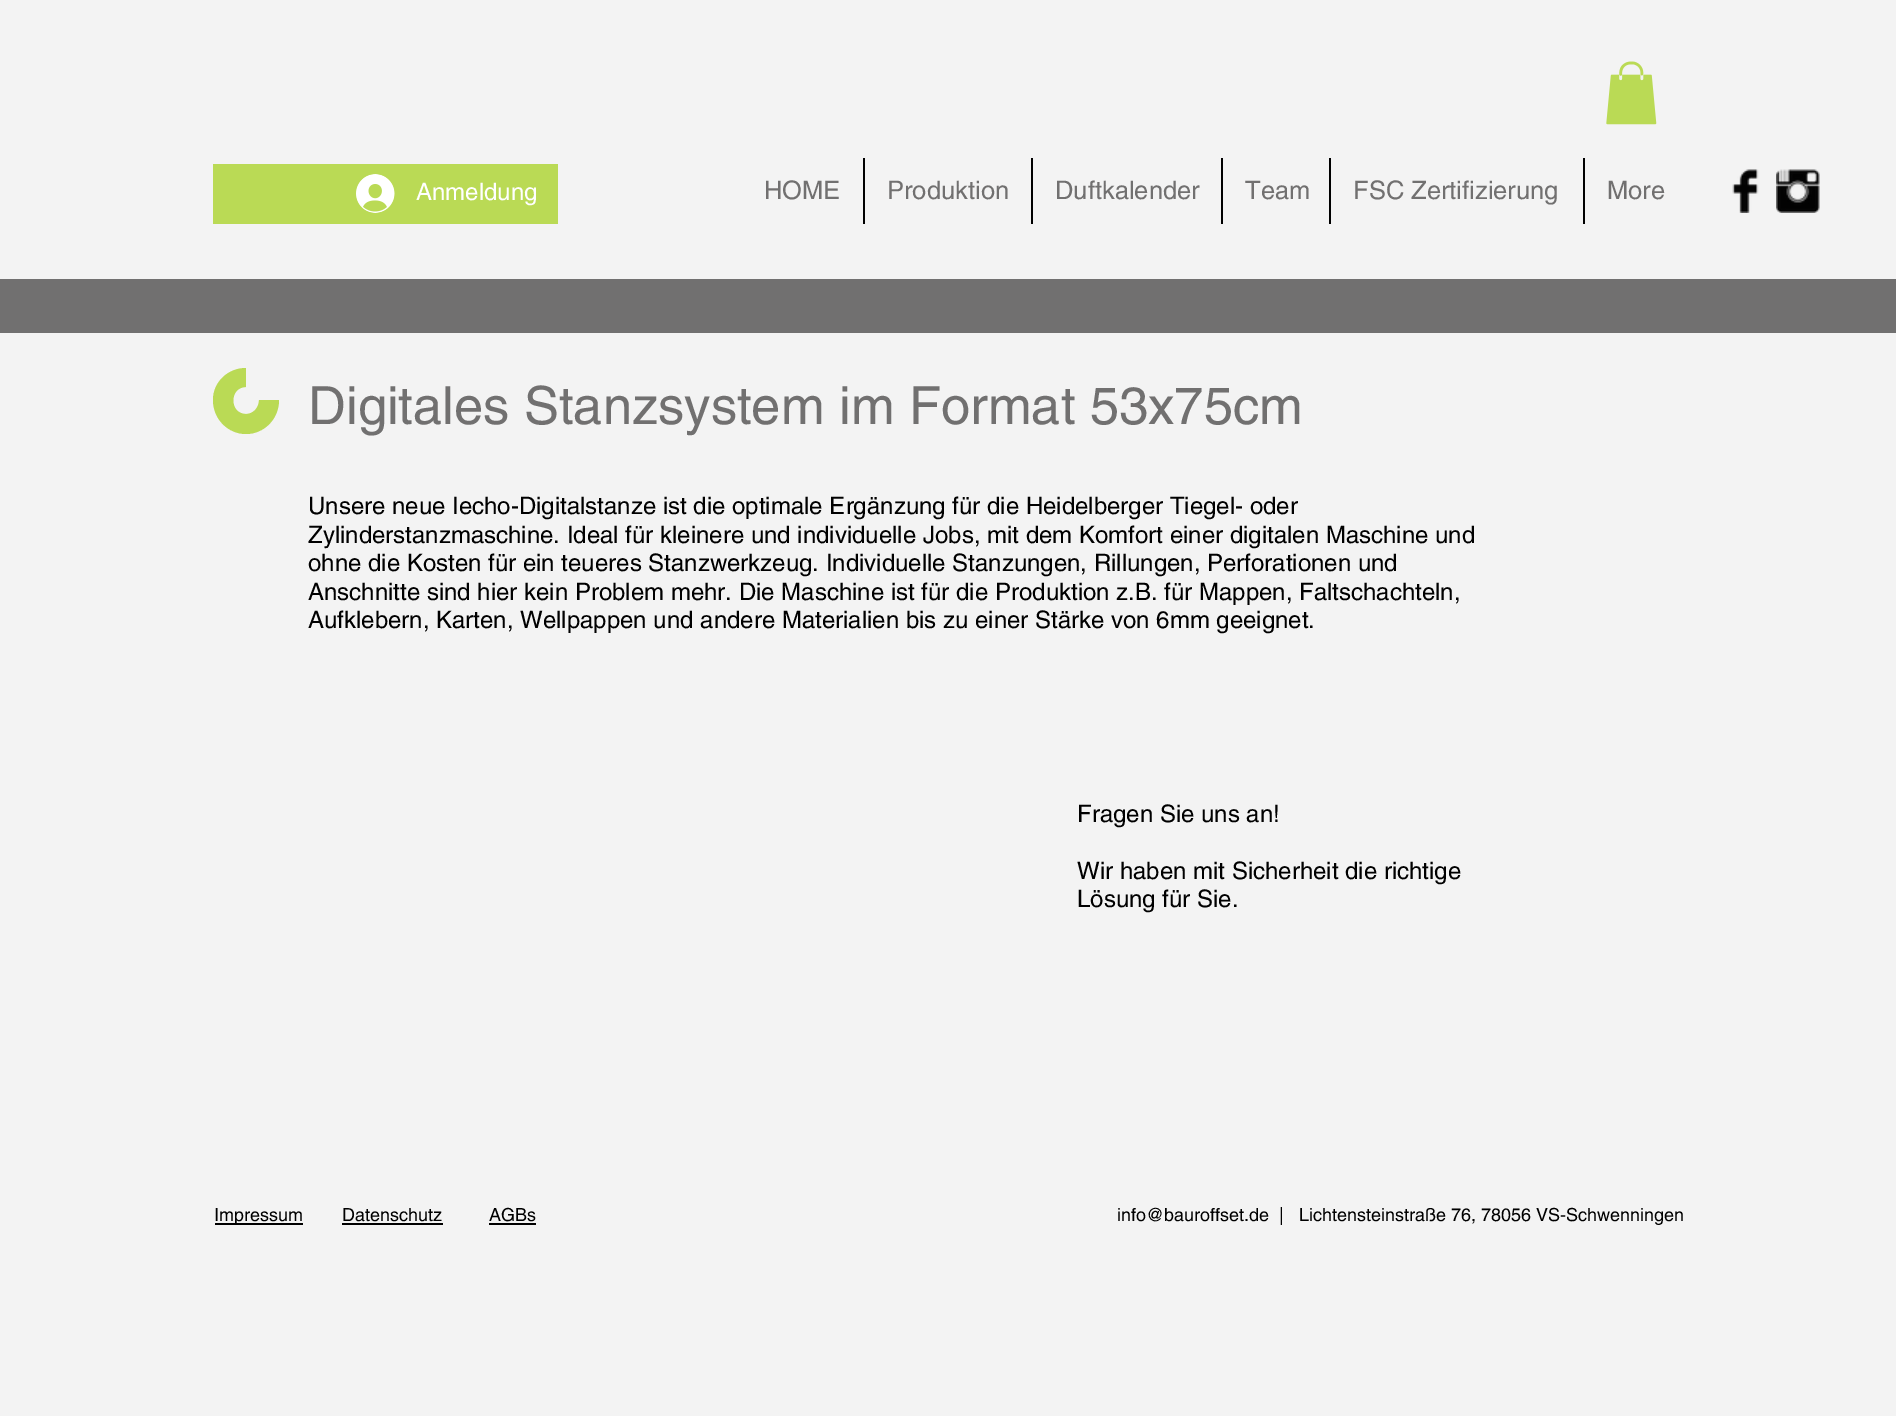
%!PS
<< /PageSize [1896 1416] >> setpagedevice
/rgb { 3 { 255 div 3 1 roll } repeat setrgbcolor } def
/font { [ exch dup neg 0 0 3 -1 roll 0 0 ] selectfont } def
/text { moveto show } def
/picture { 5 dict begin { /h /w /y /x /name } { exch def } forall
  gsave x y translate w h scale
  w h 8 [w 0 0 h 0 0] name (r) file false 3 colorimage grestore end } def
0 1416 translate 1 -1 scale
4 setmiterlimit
243 243 243 rgb
0 0 1896 1416 rectfill
(img_01.rgb) 1606 61 51 64 picture
186 218 85 rgb
213 164 345 60 rectfill
(img_02.rgb) 356 174 39 39 picture
0 0 0 rgb
863 158 2 66 rectfill
1031 158 2 66 rectfill
1221 158 2 66 rectfill
1329 158 2 66 rectfill
1583 158 2 66 rectfill
(img_03.rgb) 1732 169 27 44 picture
(img_04.rgb) 1776 169 44 44 picture
113 112 112 rgb
0 279 1896 54 rectfill
186 218 85 rgb
246 414 moveto -17 0 -17 -27 0 -27 rcurveto 0 -19 rlineto -18 0 -33 14 -33 32 rcurveto 0 19 15 34 33 34 rcurveto 18 0 33 -15 33 -34 rcurveto -20 0 rlineto 0 8 -6 14 -13 14 rcurveto closepath fill
0 0 0 rgb
215 1223 88 2 rectfill
342 1223 101 2 rectfill
489 1223 47 2 rectfill
/helvetica-Regular 24 font
255 255 255 rgb
(Anmeldung) 416 200 text
/helvetica-Regular 25.5 font
113 112 112 rgb
(HOME) 764 199 text
(Produktion) 887 199 text
(Duftkalender) 1055 199 text
(Team) 1245 199 text
(FSC Zertifizierung) 1353 199 text
(More) 1607 199 text
/helvetica-Regular 52.5 font
(Digitales Stanzsystem im Format 53x75cm) 308 424 text
/helvetica-Regular 24 font
0 0 0 rgb
(Unsere neue Iecho-Digitalstanze ist die optimale Ergänzung für die Heidelberger Tiegel- oder) 308 514 text
(Zylinderstanzmaschine. Ideal für kleinere und individuelle Jobs, mit dem Komfort einer digitalen Maschine und) 308 543 text
(ohne die Kosten für ein teueres Stanzwerkzeug. Individuelle Stanzungen, Rillungen, Perforationen und) 308 571 text
(Anschnitte sind hier kein Problem mehr. Die Maschine ist für die Produktion z.B. für Mappen, Faltschachteln,) 308 600 text
(Aufklebern, Karten, Wellpappen und andere Materialien bis zu einer Stärke von 6mm geeignet.) 308 628 text
(Fragen Sie uns an!) 1077 822 text
(Wir haben mit Sicherheit die richtige) 1077 879 text
(Lösung für Sie.) 1077 907 text
/helvetica-Regular 18 font
(Impressum) 214 1221 text
(Datenschutz) 342 1221 text
(AGBs) 489 1221 text
(info@bauroffset.de) 1117 1221 text
(|   Lichtensteinstraße 76, 78056 VS-Schwenningen) 1279 1221 text
showpage
